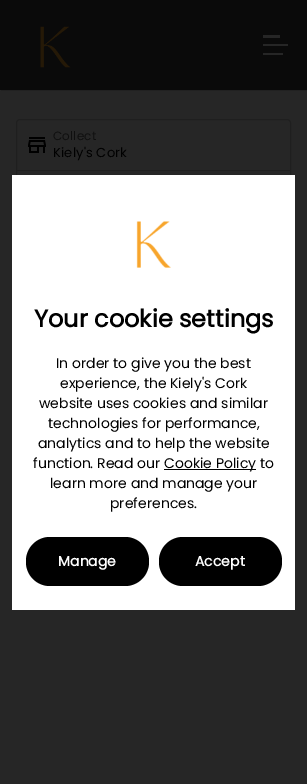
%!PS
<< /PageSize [307 784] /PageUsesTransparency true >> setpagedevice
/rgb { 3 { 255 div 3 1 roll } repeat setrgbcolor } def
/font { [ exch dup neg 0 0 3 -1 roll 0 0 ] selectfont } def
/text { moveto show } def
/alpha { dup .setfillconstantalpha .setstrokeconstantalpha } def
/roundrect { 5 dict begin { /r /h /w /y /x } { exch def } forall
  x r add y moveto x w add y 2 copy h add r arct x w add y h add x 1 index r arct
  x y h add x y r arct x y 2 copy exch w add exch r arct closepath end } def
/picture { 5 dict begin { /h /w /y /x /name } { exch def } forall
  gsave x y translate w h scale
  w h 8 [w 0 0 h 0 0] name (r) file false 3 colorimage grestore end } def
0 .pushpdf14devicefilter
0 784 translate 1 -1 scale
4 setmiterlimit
38 38 38 rgb
0 0 307 784 rectfill
0.12 alpha
0 0 0 rgb
1 90 moveto 0 1 rlineto 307 0 rlineto 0 -90 rlineto -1 0 rlineto 0 89 rlineto closepath fill
0.78 alpha
2 2 2 rgb
0 0 307 90 rectfill
1 alpha
(img_01.rgb) 40 26 31 42 picture
38 38 38 rgb
263 35 17 3 rectfill
263 44 25 2 rectfill
263 53 20 2 rectfill
31 31 31 rgb
16.5 119.5 274 100 3.5 roundrect stroke
(img_02.rgb) 28 137 18 16 picture
17 170 273 1 rectfill
255 255 255 rgb
12 175 283 435 rectfill
(img_03.rgb) 136 221 35 47 picture
0 0 0 rgb
164 469 92 1 rectfill
26 537 123 49 24 roundrect fill
159 537 123 49 24 roundrect fill
/Poppins-Regular 12 font
15 15 15 rgb
53 140 moveto 0.2 0 (Collect) ashow
/Poppins-Regular 13 font
0 0 0 rgb
53 157 moveto 0.2 0 (Kiely's Cork) ashow
/Poppins-Bold 24 font
(Your cookie settings) 34 327 text
/Poppins-Regular 14 font
(In order to give you the best) 56 368 text
(experience, the Kiely's Cork) 60 388 text
(website uses cookies and similar) 39 408 text
(technologies for performance,) 48 428 text
(analytics and to help the website) 38 448 text
(function. Read our) 33 468 text
(Cookie Policy to) 164 468 text
(learn more and manage your) 50 488 text
(preferences.) 110 508 text
/Poppins-Bold 14 font
255 255 255 rgb
(Manage) 58 566 text
(Accept) 195 566 text
.poppdf14devicefilter showpage
